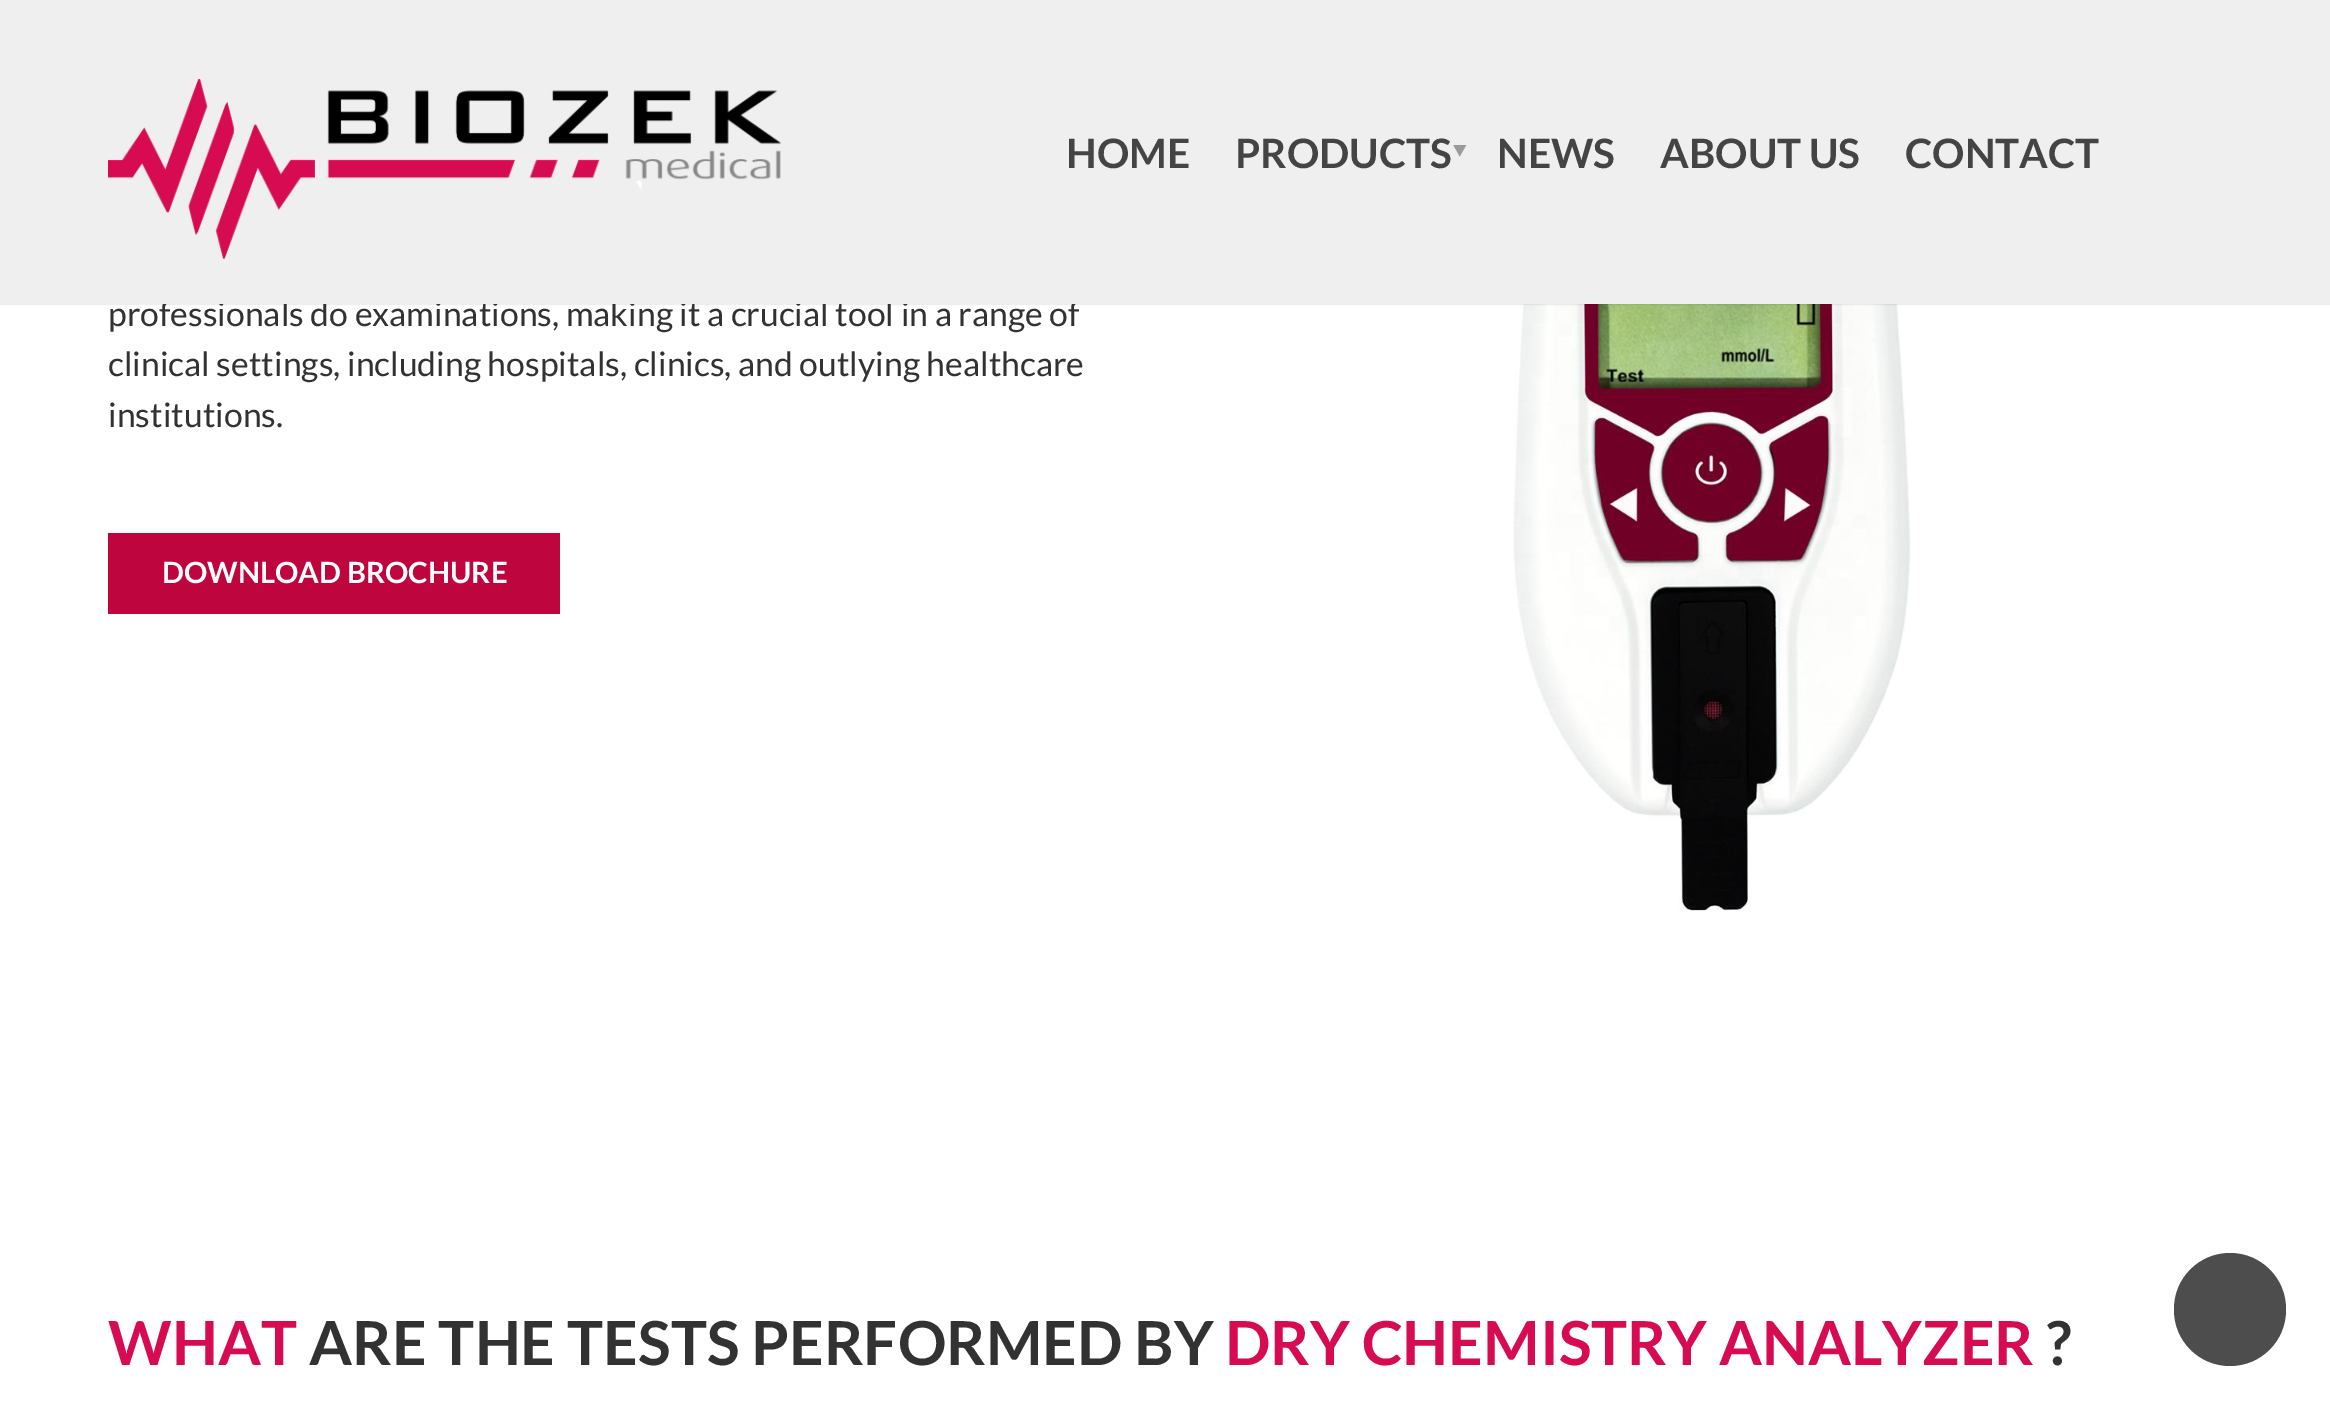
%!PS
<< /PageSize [2330 1409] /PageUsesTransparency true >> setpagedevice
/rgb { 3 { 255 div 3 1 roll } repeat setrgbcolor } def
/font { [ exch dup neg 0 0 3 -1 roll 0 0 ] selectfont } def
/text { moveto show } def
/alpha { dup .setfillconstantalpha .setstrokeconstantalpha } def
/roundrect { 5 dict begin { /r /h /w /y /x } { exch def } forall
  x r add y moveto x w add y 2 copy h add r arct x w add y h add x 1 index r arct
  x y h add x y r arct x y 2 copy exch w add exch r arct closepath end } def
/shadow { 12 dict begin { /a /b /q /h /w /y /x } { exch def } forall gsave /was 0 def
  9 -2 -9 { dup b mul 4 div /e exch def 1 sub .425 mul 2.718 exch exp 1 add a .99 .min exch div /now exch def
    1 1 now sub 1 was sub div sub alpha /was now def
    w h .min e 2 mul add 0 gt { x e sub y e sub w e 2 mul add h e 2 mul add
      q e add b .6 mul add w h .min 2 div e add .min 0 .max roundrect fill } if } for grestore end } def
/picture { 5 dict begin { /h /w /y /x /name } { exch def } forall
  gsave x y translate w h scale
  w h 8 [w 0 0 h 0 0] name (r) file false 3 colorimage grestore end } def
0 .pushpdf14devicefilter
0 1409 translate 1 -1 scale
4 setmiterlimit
255 255 255 rgb
0 0 2330 1409 rectfill
(img_02.rgb) 1513 304 398 607 picture
0 0 0 rgb
0 0 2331 304 0 1 0.2 shadow
191 5 61 rgb
108 533 452 81 rectfill
77 77 77 rgb
2174 1253 112 113 56 roundrect fill
/Lato-Regular 33.75 font
50 50 50 rgb
(professionals do examinations, making it a crucial tool in a range of) 108 326 text
239 239 239 rgb
0 0 2330 304 rectfill
/Lato-Bold 40.5 font
68 68 68 rgb
(CONTACT) 1905 168 text
(ABOUT US) 1660 168 text
(NEWS) 1497 168 text
/NotoSans-Regular 45 font
154 154 154 rgb
gsave 1443 142 translate 90 rotate 0 0 moveto (‣) show grestore
/Lato-Bold 40.5 font
68 68 68 rgb
(PRODUCTS) 1235 168 text
(HOME) 1066 168 text
(img_01.rgb) 108 79 673 180 picture
/Lato-Regular 33.75 font
50 50 50 rgb
(clinical settings, including hospitals, clinics, and outlying healthcare) 108 376 text
(institutions.) 108 427 text
/Lato-Bold 29.25 font
255 255 255 rgb
(DOWNLOAD BROCHURE) 162 583 text
/Lato-Bold 60.75 font
214 11 82 rgb
(WHAT) 108 1365 text
50 50 50 rgb
(ARE THE TESTS PERFORMED BY) 309 1365 text
214 11 82 rgb
(DRY CHEMISTRY ANALYZER) 1225 1365 text
50 50 50 rgb
(?) 2046 1365 text
.poppdf14devicefilter showpage
